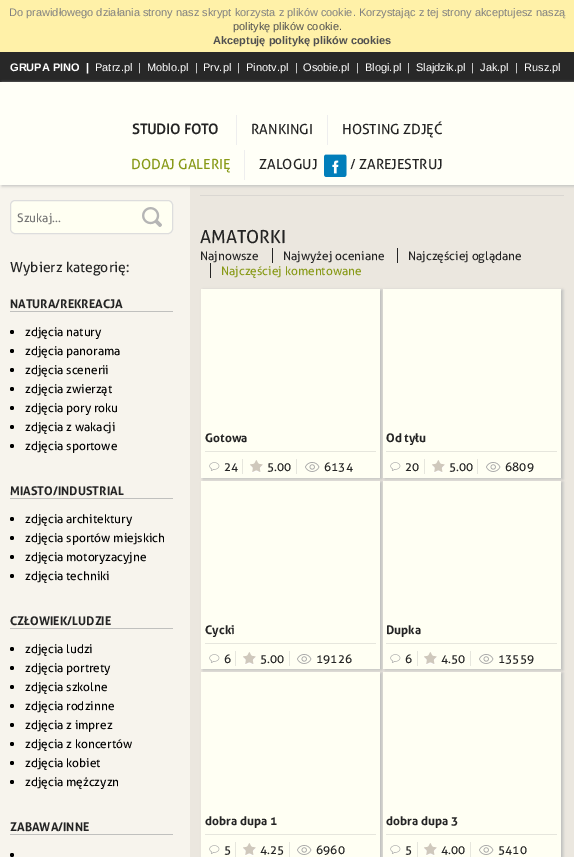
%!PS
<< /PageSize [574 857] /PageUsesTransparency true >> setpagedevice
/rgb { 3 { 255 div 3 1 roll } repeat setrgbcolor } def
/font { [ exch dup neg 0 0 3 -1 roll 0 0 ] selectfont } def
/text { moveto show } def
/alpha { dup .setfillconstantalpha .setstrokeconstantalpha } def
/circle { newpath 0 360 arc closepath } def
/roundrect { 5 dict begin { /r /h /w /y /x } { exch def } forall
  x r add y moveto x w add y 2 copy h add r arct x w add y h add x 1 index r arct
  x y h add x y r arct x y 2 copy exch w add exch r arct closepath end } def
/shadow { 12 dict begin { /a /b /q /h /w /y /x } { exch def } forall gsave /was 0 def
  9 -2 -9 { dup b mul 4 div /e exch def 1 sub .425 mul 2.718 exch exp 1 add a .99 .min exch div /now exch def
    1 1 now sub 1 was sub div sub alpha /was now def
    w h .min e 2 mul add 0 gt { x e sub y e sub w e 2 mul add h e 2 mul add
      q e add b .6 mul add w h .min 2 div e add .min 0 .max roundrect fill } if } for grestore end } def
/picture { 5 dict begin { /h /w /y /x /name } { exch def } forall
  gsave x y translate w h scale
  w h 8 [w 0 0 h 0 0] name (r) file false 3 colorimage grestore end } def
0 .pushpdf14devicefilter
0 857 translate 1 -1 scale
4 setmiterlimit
40 40 40 rgb
0 0 574 857 rectfill
255 241 168 rgb
0 0 574 52 rectfill
247 244 237 rgb
0 185 190 672 rectfill
235 231 223 rgb
190 185 384 672 rectfill
189 189 189 rgb
2 83 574 103 0 1.5 1 shadow
255 255 247 rgb
0 82 574 103 rectfill
238 238 238 rgb
236 115 1 30 rectfill
327 115 1 30 rectfill
244 150 1 30 rectfill
(img_01.rgb) 324 154 23 23 picture
255 255 242 rgb
10.5 200.5 162 33 4.5 roundrect gsave fill grestore
221 221 221 rgb
stroke
(img_02.rgb) 142 207 20 20 picture
192 192 190 rgb
10 311 163 1 rectfill
0 0 0 rgb
12 332 2 circle fill
12 351 2 circle fill
12 370 2 circle fill
12 389 2 circle fill
12 408 2 circle fill
12 427 2 circle fill
12 446 2 circle fill
192 192 190 rgb
10 498 163 1 rectfill
0 0 0 rgb
12 519 2 circle fill
12 538 2 circle fill
12 557 2 circle fill
12 576 2 circle fill
192 192 190 rgb
10 628 163 1 rectfill
0 0 0 rgb
12 649 2 circle fill
12 668 2 circle fill
12 687 2 circle fill
12 706 2 circle fill
12 725 2 circle fill
12 744 2 circle fill
12 763 2 circle fill
12 782 2 circle fill
192 192 190 rgb
10 834 163 1 rectfill
0 0 0 rgb
12 855 2 circle fill
218 215 210 rgb
200 195 364 1 rectfill
36 36 36 rgb
272 248 1 15 rectfill
397 248 1 15 rectfill
210 263 1 15 rectfill
189 189 189 rgb
203 290 179 189 0 1.5 1 shadow
255 255 243 rgb
201 289 179 189 rectfill
230 230 221 rgb
205 451 171 1 rectfill
242 459 1 15 rectfill
(img_03.rgb) 209 462 11 9 picture
296 459 1 15 rectfill
(img_04.rgb) 250 460 13 13 picture
(img_05.rgb) 305 462 15 10 picture
189 189 189 rgb
385 290 178 189 0 1.5 1 shadow
255 255 243 rgb
383 289 178 189 rectfill
230 230 221 rgb
386 451 171 1 rectfill
424 459 1 15 rectfill
(img_03.rgb) 390 462 11 9 picture
477 459 1 15 rectfill
(img_04.rgb) 432 460 13 13 picture
(img_05.rgb) 486 462 15 10 picture
189 189 189 rgb
203 482 179 188 0 1.5 1 shadow
255 255 243 rgb
201 481 179 188 rectfill
230 230 221 rgb
205 643 171 1 rectfill
235 651 1 15 rectfill
(img_03.rgb) 209 654 11 9 picture
289 651 1 15 rectfill
(img_04.rgb) 243 652 13 13 picture
(img_05.rgb) 297 654 15 10 picture
189 189 189 rgb
385 482 178 188 0 1.5 1 shadow
255 255 243 rgb
383 481 178 188 rectfill
230 230 221 rgb
386 643 171 1 rectfill
417 651 1 15 rectfill
(img_03.rgb) 390 654 11 9 picture
470 651 1 15 rectfill
(img_04.rgb) 424 652 13 13 picture
(img_05.rgb) 479 654 15 10 picture
189 189 189 rgb
203 673 179 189 0 1.5 1 shadow
255 255 243 rgb
201 672 179 185 rectfill
230 230 221 rgb
205 834 171 1 rectfill
235 842 1 15 rectfill
(img_03.rgb) 209 845 11 9 picture
289 842 1 15 rectfill
(img_04.rgb) 243 843 13 13 picture
(img_05.rgb) 297 845 15 10 picture
189 189 189 rgb
385 673 178 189 0 1.5 1 shadow
255 255 243 rgb
383 672 178 185 rectfill
230 230 221 rgb
386 834 171 1 rectfill
417 842 1 15 rectfill
(img_03.rgb) 390 845 11 9 picture
470 842 1 15 rectfill
(img_04.rgb) 424 843 13 13 picture
(img_05.rgb) 479 845 15 10 picture
/LiberationSans-Regular 11 font
128 128 128 rgb
(Do prawidłowego działania strony nasz skrypt korzysta z plików cookie. Korzystając z tej strony akceptujesz naszą) 9 16 text
80 80 80 rgb
(politykę plików cookie.) 233 30 text
/LiberationSans-Bold 11 font
(Akceptuję politykę plików cookies) 213 44 text
255 255 255 rgb
(GRUPA PINO) 10 71 text
(|) 86 71 text
/LiberationSans-Regular 11 font
(Patrz.pl) 95 71 text
(|) 138 71 text
(Moblo.pl) 147 71 text
(|) 195 71 text
(Prv.pl) 203 71 text
(|) 237 71 text
(Pinotv.pl) 246 71 text
(|) 295 71 text
(Osobie.pl) 303 71 text
(|) 356 71 text
(Blogi.pl) 365 71 text
(|) 407 71 text
(Slajdzik.pl) 416 71 text
(|) 471 71 text
(Jak.pl) 480 71 text
(|) 515 71 text
(Rusz.pl) 524 71 text
/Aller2-Bold 14 font
36 36 36 rgb
(STUDIO FOTO) 132 134 text
/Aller-Regular 14 font
(RANKINGI) 251 134 text
(HOSTING ZDJĘĆ) 342 134 text
136 154 24 rgb
(DODAJ GALERIĘ) 131 169 text
36 36 36 rgb
(ZALOGUJ) 259 169 text
(/ ZAREJESTRUJ) 350 169 text
/Aller-Regular 12 font
117 117 117 rgb
(Szukaj...) 17 222 text
/Aller-Regular 14 font
36 36 36 rgb
(Wybierz kategorię:) 10 272 text
/Aller-Bold 12 font
(NATURA/REKREACJA) 10 308 text
/Aller-Regular 12 font
0 0 0 rgb
(zdjęcia natury) 25 336 text
(zdjęcia panorama) 25 355 text
(zdjęcia scenerii) 25 374 text
(zdjęcia zwierząt) 25 393 text
(zdjęcia pory roku) 25 412 text
(zdjęcia z wakacji) 25 431 text
(zdjęcia sportowe) 25 450 text
/Aller-Bold 12 font
36 36 36 rgb
(MIASTO/INDUSTRIAL) 10 495 text
/Aller-Regular 12 font
0 0 0 rgb
(zdjęcia architektury) 25 523 text
(zdjęcia sportów miejskich) 25 542 text
(zdjęcia motoryzacyjne) 25 561 text
(zdjęcia techniki) 25 580 text
/Aller-Bold 12 font
36 36 36 rgb
(CZŁOWIEK/LUDZIE) 10 625 text
/Aller-Regular 12 font
0 0 0 rgb
(zdjęcia ludzi) 25 653 text
(zdjęcia portrety) 25 672 text
(zdjęcia szkolne) 25 691 text
(zdjęcia rodzinne) 25 710 text
(zdjęcia z imprez) 25 729 text
(zdjęcia z koncertów) 25 748 text
(zdjęcia kobiet) 25 767 text
(zdjęcia mężczyzn) 25 786 text
/Aller-Bold 12 font
36 36 36 rgb
(ZABAWA/INNE) 10 831 text
/Aller-Regular 18 font
(AMATORKI) 200 243 text
/Aller-Regular 12 font
(Najnowsze) 200 260 text
(Najwyżej oceniane) 283 260 text
(Najczęściej oglądane) 408 260 text
136 154 24 rgb
(Najczęściej komentowane) 221 275 text
/Aller-Bold 12 font
36 36 36 rgb
(Gotowa) 205 442 text
/Aller-Regular 12 font
(24) 224 471 text
(5.00) 267 471 text
(6134) 324 471 text
/Aller-Bold 12 font
(Od tyłu) 386 442 text
/Aller-Regular 12 font
(20) 405 471 text
(5.00) 449 471 text
(6809) 505 471 text
/Aller-Bold 12 font
(Cycki) 205 634 text
/Aller-Regular 12 font
(6) 224 663 text
(5.00) 260 663 text
(19126) 316 663 text
/Aller-Bold 12 font
(Dupka) 386 634 text
/Aller-Regular 12 font
(6) 405 663 text
(4.50) 441 663 text
(13559) 498 663 text
/Aller-Bold 12 font
(dobra dupa 1) 205 825 text
/Aller-Regular 12 font
(5) 224 854 text
(4.25) 260 854 text
(6960) 316 854 text
/Aller-Bold 12 font
(dobra dupa 3) 386 825 text
/Aller-Regular 12 font
(5) 405 854 text
(4.00) 441 854 text
(5410) 498 854 text
.poppdf14devicefilter showpage
